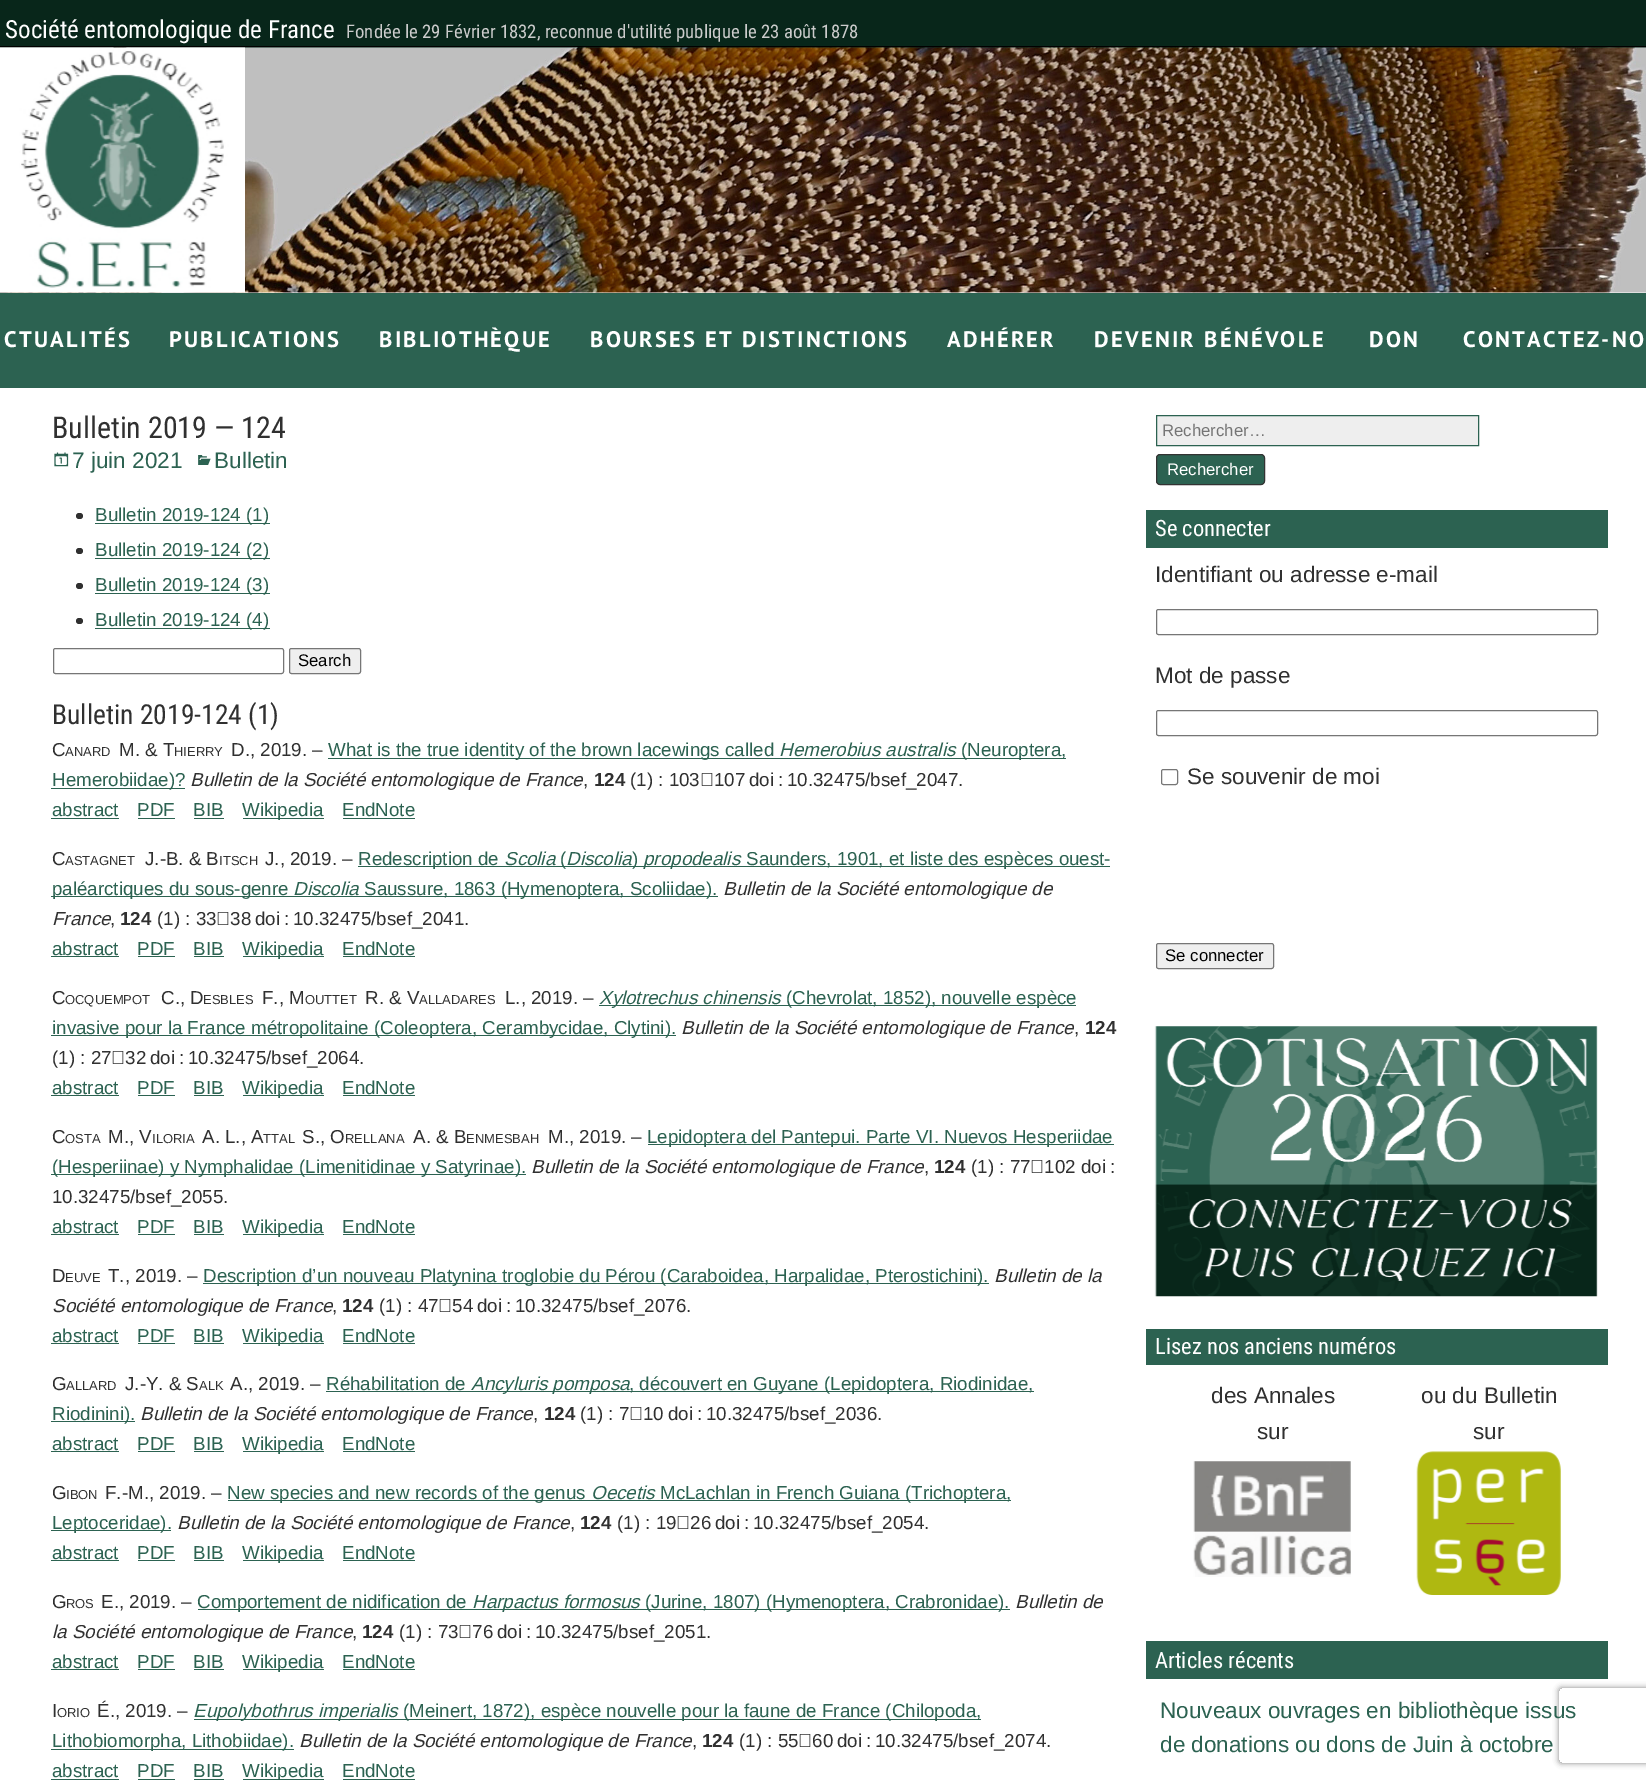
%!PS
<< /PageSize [1646 1780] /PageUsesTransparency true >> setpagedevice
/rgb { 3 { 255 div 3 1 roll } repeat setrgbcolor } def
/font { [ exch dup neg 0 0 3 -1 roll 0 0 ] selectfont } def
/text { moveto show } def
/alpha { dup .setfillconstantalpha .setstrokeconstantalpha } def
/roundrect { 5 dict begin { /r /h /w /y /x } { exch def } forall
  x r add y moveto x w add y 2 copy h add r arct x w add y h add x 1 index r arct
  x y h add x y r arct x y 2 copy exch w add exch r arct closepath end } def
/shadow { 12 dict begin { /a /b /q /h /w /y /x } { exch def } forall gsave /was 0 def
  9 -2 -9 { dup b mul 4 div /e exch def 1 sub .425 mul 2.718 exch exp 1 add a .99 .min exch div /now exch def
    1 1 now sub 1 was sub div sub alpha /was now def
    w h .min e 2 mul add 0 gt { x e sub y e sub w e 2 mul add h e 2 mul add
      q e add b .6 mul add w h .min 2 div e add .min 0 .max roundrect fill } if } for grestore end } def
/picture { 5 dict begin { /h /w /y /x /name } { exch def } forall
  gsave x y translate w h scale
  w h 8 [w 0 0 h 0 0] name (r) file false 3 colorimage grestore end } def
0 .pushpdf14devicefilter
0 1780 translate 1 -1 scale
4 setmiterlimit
255 255 255 rgb
0 0 1646 1780 rectfill
8 38 26 rgb
0 0 1646 48 rectfill
0 0 0 rgb
0 46 1646 1 rectfill
(img_01.rgb) 0 47 1646 246 picture
(img_02.rgb) 0 47 245 246 picture
44 98 81 rgb
0 293 1646 95 rectfill
(img_03.rgb) 54 452 15 15 picture
(img_04.rgb) 198 455 13 10 picture
48 48 48 rgb
76 513 7 6 3 roundrect fill
44 98 81 rgb
95 523 175 1 rectfill
48 48 48 rgb
76 548 7 6 3 roundrect fill
44 98 81 rgb
95 558 175 1 rectfill
48 48 48 rgb
76 583 7 6 3 roundrect fill
44 98 81 rgb
95 593 175 1 rectfill
48 48 48 rgb
76 618 7 6 3 roundrect fill
44 98 81 rgb
95 628 175 1 rectfill
118 118 118 rgb
53.5 648.5 230 25 2 roundrect stroke
239 239 239 rgb
289.5 648.5 71 25 2 roundrect gsave fill grestore
118 118 118 rgb
stroke
44 98 81 rgb
328 758 738 1 rectfill
51 788 134 1 rectfill
51 818 68 1 rectfill
138 818 37 1 rectfill
194 818 30 1 rectfill
243 818 81 1 rectfill
343 818 72 1 rectfill
358 866 208 1 rectfill
566 866 174 1 rectfill
740 866 370 1 rectfill
51 896 667 1 rectfill
51 956 68 1 rectfill
138 956 37 1 rectfill
194 956 30 1 rectfill
243 956 81 1 rectfill
343 956 72 1 rectfill
599 1005 181 1 rectfill
780 1005 296 1 rectfill
51 1035 625 1 rectfill
51 1095 68 1 rectfill
138 1095 37 1 rectfill
194 1095 30 1 rectfill
243 1095 81 1 rectfill
343 1095 72 1 rectfill
648 1144 466 1 rectfill
51 1174 475 1 rectfill
51 1234 68 1 rectfill
138 1234 37 1 rectfill
194 1234 30 1 rectfill
243 1234 81 1 rectfill
343 1234 72 1 rectfill
203 1283 786 1 rectfill
51 1343 68 1 rectfill
138 1343 37 1 rectfill
194 1343 30 1 rectfill
243 1343 81 1 rectfill
343 1343 72 1 rectfill
326 1391 708 1 rectfill
51 1421 84 1 rectfill
51 1451 68 1 rectfill
138 1451 37 1 rectfill
194 1451 30 1 rectfill
243 1451 81 1 rectfill
343 1451 72 1 rectfill
228 1500 783 1 rectfill
51 1530 120 1 rectfill
51 1560 68 1 rectfill
138 1560 37 1 rectfill
194 1560 30 1 rectfill
243 1560 81 1 rectfill
343 1560 72 1 rectfill
198 1609 442 1 rectfill
640 1609 370 1 rectfill
51 1669 68 1 rectfill
138 1669 37 1 rectfill
194 1669 30 1 rectfill
243 1669 81 1 rectfill
343 1669 72 1 rectfill
194 1719 204 1 rectfill
398 1719 583 1 rectfill
51 1749 243 1 rectfill
51 1779 68 1 rectfill
138 1779 37 1 rectfill
194 1779 30 1 rectfill
243 1779 81 1 rectfill
343 1779 72 1 rectfill
238 238 238 rgb
1156.5 415.5 moveto 322 0 rlineto 0 30 rlineto -322 0 rlineto closepath gsave fill grestore
44 98 81 rgb
stroke
1156.5 454.5 108 30 3.5 roundrect gsave fill grestore
51 51 51 rgb
stroke
44 98 81 rgb
1146 510 462 38 rectfill
118 118 118 rgb
1156.5 609.5 441 25 2 roundrect stroke
1156.5 710.5 441 25 2 roundrect stroke
1161.5 769.5 16 15 2 roundrect stroke
239 239 239 rgb
1156.5 943.5 117 25 2 roundrect gsave fill grestore
118 118 118 rgb
stroke
(img_05.rgb) 1154 1026 444 271 picture
44 98 81 rgb
1146 1329 462 36 rectfill
(img_06.rgb) 1193 1461 158 116 picture
(img_07.rgb) 1416 1451 145 144 picture
1146 1641 462 38 rectfill
gsave
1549 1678 moveto 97 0 rlineto 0 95 rlineto -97 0 rlineto closepath 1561.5 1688 moveto 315 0 rlineto 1.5 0 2.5 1 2.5 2.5 rcurveto 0 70 rlineto 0 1.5 -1 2.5 -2.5 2.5 rcurveto -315 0 rlineto -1.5 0 -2.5 -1 -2.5 -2.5 rcurveto 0 -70 rlineto 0 -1.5 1 -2.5 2.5 -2.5 rcurveto closepath eoclip newpath
128 128 128 rgb
1559 1688 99 75 2.5 3 1 shadow
grestore
/RobotoCondensed-Regular 25 font
255 255 255 rgb
(Société entomologique de France) 5 38 text
/RobotoCondensed-Regular 18.75 font
204 204 204 rgb
(Fondée le 29 Février 1832, reconnue d'utilité publique le 23 août 1878) 346 38 text
/PTSans-Bold 22.5 font
255 255 255 rgb
4 347 moveto 2.25 0 (CTUALITÉS) ashow
169 347 moveto 2.25 0 (PUBLICATIONS) ashow
379 347 moveto 2.25 0 (BIBLIOTHÈQUE) ashow
590 347 moveto 2.25 0 (BOURSES ET DISTINCTIONS) ashow
947 347 moveto 2.25 0 (ADHÉRER) ashow
1094 347 moveto 2.25 0 (DEVENIR BÉNÉVOLE) ashow
1369 347 moveto 2.25 0 (DON) ashow
1463 347 moveto 2.25 0 (CONTACTEZ-NO) ashow
/RobotoCondensed-Regular 30 font
48 48 48 rgb
(Bulletin 2019 — 124) 52 438 text
/LiberationSans-Regular 22.5 font
44 98 81 rgb
(7 juin 2021) 72 468 text
(Bulletin) 214 468 text
/Arimo-Regular 18.75 font
(Bulletin 2019-124 \(1\)) 95 521 text
(Bulletin 2019-124 \(2\)) 95 556 text
(Bulletin 2019-124 \(3\)) 95 591 text
(Bulletin 2019-124 \(4\)) 95 626 text
/LiberationSans-Regular 16.75 font
0 0 0 rgb
(Search) 298 666 text
/RobotoCondensed-Regular 27.5 font
48 48 48 rgb
(Bulletin 2019-124 \(1\)) 52 724 text
/Arimo-Regular 18.75 font
(C) 52 756 text
/Arimo-Regular 13 font
(ANARD) 65 756 text
/Arimo-Regular 18.75 font
(M. & T) 119 756 text
/Arimo-Regular 13 font
(HIERRY) 174 756 text
/Arimo-Regular 18.75 font
(D., 2019. –) 231 756 text
44 98 81 rgb
(What is the true identity of the brown lacewings called) 328 756 text
/Arimo-Italic 18.75 font
(Hemerobius australis) 779 756 text
/Arimo-Regular 18.75 font
(\(Neuroptera,) 961 756 text
(Hemerobiidae\)?) 52 786 text
/Arimo-Italic 18.75 font
48 48 48 rgb
(Bulletin de la Société entomologique de France) 190 786 text
/Arimo-Regular 18.75 font
(,) 583 786 text
/Arimo-Bold 18.75 font
(124) 594 786 text
/LiberationSans-Regular 18.75 font
(\(1\) : 103‑107) 630 786 text
(doi) 749 786 text
(:) 778 786 text
(10.32475/bsef_2047.) 787 786 text
/Arimo-Regular 18.75 font
44 98 81 rgb
(abstract) 52 816 text
(PDF) 137 816 text
(BIB) 193 816 text
(Wikipedia) 242 816 text
(EndNote) 342 816 text
48 48 48 rgb
(C) 52 865 text
/Arimo-Regular 13 font
(ASTAGNET) 65 865 text
/Arimo-Regular 18.75 font
(J.-B. & B) 145 865 text
/Arimo-Regular 13 font
(ITSCH) 219 865 text
/Arimo-Regular 18.75 font
(J., 2019. –) 265 865 text
44 98 81 rgb
(Redescription de) 358 865 text
/Arimo-Italic 18.75 font
(Scolia) 504 865 text
/Arimo-Regular 18.75 font
(\() 560 865 text
/Arimo-Italic 18.75 font
(Discolia) 566 865 text
/Arimo-Regular 18.75 font
(\)) 632 865 text
/Arimo-Italic 18.75 font
(propodealis) 643 865 text
/Arimo-Regular 18.75 font
(Saunders, 1901, et liste des espèces ouest-) 746 865 text
(paléarctiques du sous-genre) 52 895 text
/Arimo-Italic 18.75 font
(Discolia) 293 895 text
/Arimo-Regular 18.75 font
(Saussure, 1863 \(Hymenoptera, Scoliidae\).) 364 895 text
/Arimo-Italic 18.75 font
48 48 48 rgb
(Bulletin de la Société entomologique de) 723 895 text
(France) 52 925 text
/Arimo-Regular 18.75 font
(,) 110 925 text
/Arimo-Bold 18.75 font
(124) 120 925 text
/LiberationSans-Regular 18.75 font
(\(1\) : 33‑38) 157 925 text
(doi) 255 925 text
(:) 284 925 text
(10.32475/bsef_2041.) 293 925 text
/Arimo-Regular 18.75 font
44 98 81 rgb
(abstract) 52 955 text
(PDF) 137 955 text
(BIB) 193 955 text
(Wikipedia) 242 955 text
(EndNote) 342 955 text
48 48 48 rgb
(C) 52 1004 text
/Arimo-Regular 13 font
(OCQUEMPOT) 65 1004 text
/Arimo-Regular 18.75 font
(C., D) 161 1004 text
/Arimo-Regular 13 font
(ESBLES) 203 1004 text
/Arimo-Regular 18.75 font
(F., M) 262 1004 text
/Arimo-Regular 13 font
(OUTTET) 305 1004 text
/Arimo-Regular 18.75 font
(R. & V) 365 1004 text
/Arimo-Regular 13 font
(ALLADARES) 419 1004 text
/Arimo-Regular 18.75 font
(L., 2019. –) 505 1004 text
/Arimo-Italic 18.75 font
44 98 81 rgb
(Xylotrechus chinensis) 599 1004 text
/Arimo-Regular 18.75 font
(\(Chevrolat, 1852\), nouvelle espèce) 786 1004 text
(invasive pour la France métropolitaine \(Coleoptera, Cerambycidae, Clytini\).) 52 1034 text
/Arimo-Italic 18.75 font
48 48 48 rgb
(Bulletin de la Société entomologique de France) 681 1034 text
/Arimo-Bold 18.75 font
(124) 1085 1034 text
/Arimo-Regular 18.75 font
(,) 1074 1034 text
/LiberationSans-Regular 18.75 font
(\(1\) : 27‑32) 52 1064 text
(doi) 150 1064 text
(:) 179 1064 text
(10.32475/bsef_2064.) 188 1064 text
/Arimo-Regular 18.75 font
44 98 81 rgb
(abstract) 52 1094 text
(PDF) 137 1094 text
(BIB) 193 1094 text
(Wikipedia) 242 1094 text
(EndNote) 342 1094 text
48 48 48 rgb
(C) 52 1143 text
/Arimo-Regular 13 font
(OSTA) 65 1143 text
/Arimo-Regular 18.75 font
(M., V) 108 1143 text
/Arimo-Regular 13 font
(ILORIA) 152 1143 text
/Arimo-Regular 18.75 font
(A. L., A) 202 1143 text
/Arimo-Regular 13 font
(TTAL) 263 1143 text
/Arimo-Regular 18.75 font
(S., O) 302 1143 text
/Arimo-Regular 13 font
(RELLANA) 345 1143 text
/Arimo-Regular 18.75 font
(A. & B) 413 1143 text
/Arimo-Regular 13 font
(ENMESBAH) 466 1143 text
/Arimo-Regular 18.75 font
(M., 2019. –) 548 1143 text
44 98 81 rgb
(Lepidoptera del Pantepui. Parte VI. Nuevos Hesperiidae) 647 1143 text
(\(Hesperiinae\) y Nymphalidae \(Limenitidinae y Satyrinae\).) 52 1173 text
/Arimo-Italic 18.75 font
48 48 48 rgb
(Bulletin de la Société entomologique de France) 531 1173 text
/Arimo-Regular 18.75 font
(,) 924 1173 text
/Arimo-Bold 18.75 font
(124) 934 1173 text
/LiberationSans-Regular 18.75 font
(\(1\) : 77‑102 doi) 971 1173 text
(:) 1110 1173 text
(10.32475/bsef_2055.) 52 1203 text
/Arimo-Regular 18.75 font
44 98 81 rgb
(abstract) 52 1233 text
(PDF) 137 1233 text
(BIB) 193 1233 text
(Wikipedia) 242 1233 text
(EndNote) 342 1233 text
48 48 48 rgb
(D) 52 1282 text
/Arimo-Regular 13 font
(EUVE) 65 1282 text
/Arimo-Regular 18.75 font
(T., 2019. –) 108 1282 text
44 98 81 rgb
(Description d’un nouveau Platynina troglobie du Pérou \(Caraboidea, Harpalidae, Pterostichini\).) 203 1282 text
/Arimo-Italic 18.75 font
48 48 48 rgb
(Bulletin de la) 994 1282 text
(Société entomologique de France) 52 1312 text
/Arimo-Regular 18.75 font
(,) 332 1312 text
/Arimo-Bold 18.75 font
(124) 342 1312 text
/LiberationSans-Regular 18.75 font
(\(1\) : 47‑54) 379 1312 text
(doi) 477 1312 text
(:) 506 1312 text
(10.32475/bsef_2076.) 515 1312 text
/Arimo-Regular 18.75 font
44 98 81 rgb
(abstract) 52 1342 text
(PDF) 137 1342 text
(BIB) 193 1342 text
(Wikipedia) 242 1342 text
(EndNote) 342 1342 text
48 48 48 rgb
(G) 52 1390 text
/Arimo-Regular 13 font
(ALLARD) 66 1390 text
/Arimo-Regular 18.75 font
(J.-Y. & S) 125 1390 text
/Arimo-Regular 13 font
(ALK) 199 1390 text
/Arimo-Regular 18.75 font
(A., 2019. –) 230 1390 text
44 98 81 rgb
(Réhabilitation de) 326 1390 text
/Arimo-Italic 18.75 font
(Ancyluris pomposa) 471 1390 text
/Arimo-Regular 18.75 font
(, découvert en Guyane \(Lepidoptera, Riodinidae,) 629 1390 text
(Riodinini\).) 52 1420 text
/Arimo-Italic 18.75 font
48 48 48 rgb
(Bulletin de la Société entomologique de France) 140 1420 text
/Arimo-Regular 18.75 font
(,) 533 1420 text
/Arimo-Bold 18.75 font
(124) 544 1420 text
/LiberationSans-Regular 18.75 font
(\(1\) : 7‑10) 580 1420 text
(doi) 668 1420 text
(:) 697 1420 text
(10.32475/bsef_2036.) 706 1420 text
/Arimo-Regular 18.75 font
44 98 81 rgb
(abstract) 52 1450 text
(PDF) 137 1450 text
(BIB) 193 1450 text
(Wikipedia) 242 1450 text
(EndNote) 342 1450 text
48 48 48 rgb
(G) 52 1499 text
/Arimo-Regular 13 font
(IBON) 66 1499 text
/Arimo-Regular 18.75 font
(F.-M., 2019. –) 105 1499 text
44 98 81 rgb
(New species and new records of the genus) 227 1499 text
/Arimo-Italic 18.75 font
(Oecetis) 591 1499 text
/Arimo-Regular 18.75 font
(McLachlan in French Guiana \(Trichoptera,) 660 1499 text
(Leptoceridae\).) 52 1529 text
/Arimo-Italic 18.75 font
48 48 48 rgb
(Bulletin de la Société entomologique de France) 177 1529 text
/Arimo-Regular 18.75 font
(,) 570 1529 text
/Arimo-Bold 18.75 font
(124) 580 1529 text
/LiberationSans-Regular 18.75 font
(\(1\) : 19‑26) 617 1529 text
(doi) 715 1529 text
(:) 744 1529 text
(10.32475/bsef_2054.) 753 1529 text
/Arimo-Regular 18.75 font
44 98 81 rgb
(abstract) 52 1559 text
(PDF) 137 1559 text
(BIB) 193 1559 text
(Wikipedia) 242 1559 text
(EndNote) 342 1559 text
48 48 48 rgb
(G) 52 1608 text
/Arimo-Regular 13 font
(ROS) 66 1608 text
/Arimo-Regular 18.75 font
(E., 2019. –) 101 1608 text
44 98 81 rgb
(Comportement de nidification de) 197 1608 text
/Arimo-Italic 18.75 font
(Harpactus formosus) 472 1608 text
/Arimo-Regular 18.75 font
(\(Jurine, 1807\) \(Hymenoptera, Crabronidae\).) 645 1608 text
/Arimo-Italic 18.75 font
48 48 48 rgb
(Bulletin de) 1015 1608 text
(la Société entomologique de France) 52 1638 text
/Arimo-Regular 18.75 font
(,) 352 1638 text
/Arimo-Bold 18.75 font
(124) 362 1638 text
/LiberationSans-Regular 18.75 font
(\(1\) : 73‑76) 399 1638 text
(doi) 497 1638 text
(:) 526 1638 text
(10.32475/bsef_2051.) 535 1638 text
/Arimo-Regular 18.75 font
44 98 81 rgb
(abstract) 52 1668 text
(PDF) 137 1668 text
(BIB) 193 1668 text
(Wikipedia) 242 1668 text
(EndNote) 342 1668 text
48 48 48 rgb
(I) 52 1717 text
/Arimo-Regular 13 font
(ORIO) 57 1717 text
/Arimo-Regular 18.75 font
(É., 2019. –) 97 1717 text
/Arimo-Italic 18.75 font
44 98 81 rgb
(Eupolybothrus imperialis) 193 1717 text
/Arimo-Regular 18.75 font
(\(Meinert, 1872\), espèce nouvelle pour la faune de France \(Chilopoda,) 403 1717 text
(Lithobiomorpha, Lithobiidae\).) 52 1747 text
/Arimo-Italic 18.75 font
48 48 48 rgb
(Bulletin de la Société entomologique de France) 299 1747 text
/Arimo-Regular 18.75 font
(,) 692 1747 text
/Arimo-Bold 18.75 font
(124) 702 1747 text
/LiberationSans-Regular 18.75 font
(\(1\) : 55‑60) 739 1747 text
(doi) 837 1747 text
(:) 866 1747 text
(10.32475/bsef_2074.) 875 1747 text
/Arimo-Regular 18.75 font
44 98 81 rgb
(abstract) 52 1777 text
(PDF) 137 1777 text
(BIB) 193 1777 text
(Wikipedia) 242 1777 text
(EndNote) 342 1777 text
/LiberationSans-Regular 16.75 font
117 117 117 rgb
(Rechercher…) 1162 436 text
255 255 255 rgb
(Rechercher) 1167 475 text
/RobotoCondensed-Regular 22.5 font
(Se connecter) 1155 536 text
/LiberationSans-Regular 22.5 font
48 48 48 rgb
(Identifiant ou adresse e-mail) 1155 582 text
(Mot de passe) 1155 683 text
(Se souvenir de moi) 1187 784 text
/LiberationSans-Regular 16.75 font
0 0 0 rgb
(Se connecter) 1165 961 text
/RobotoCondensed-Regular 22.5 font
255 255 255 rgb
(Lisez nos anciens numéros) 1155 1354 text
/LiberationSans-Regular 22.5 font
48 48 48 rgb
(des Annales) 1211 1403 text
(ou du Bulletin) 1421 1403 text
(sur) 1257 1439 text
(sur) 1473 1439 text
/RobotoCondensed-Regular 22.5 font
255 255 255 rgb
(Articles récents) 1155 1668 text
/LiberationSans-Regular 22.5 font
44 98 81 rgb
(Nouveaux ouvrages en bibliothèque issus) 1160 1718 text
(de donations ou dons de Juin à octobre) 1160 1752 text
.poppdf14devicefilter showpage
